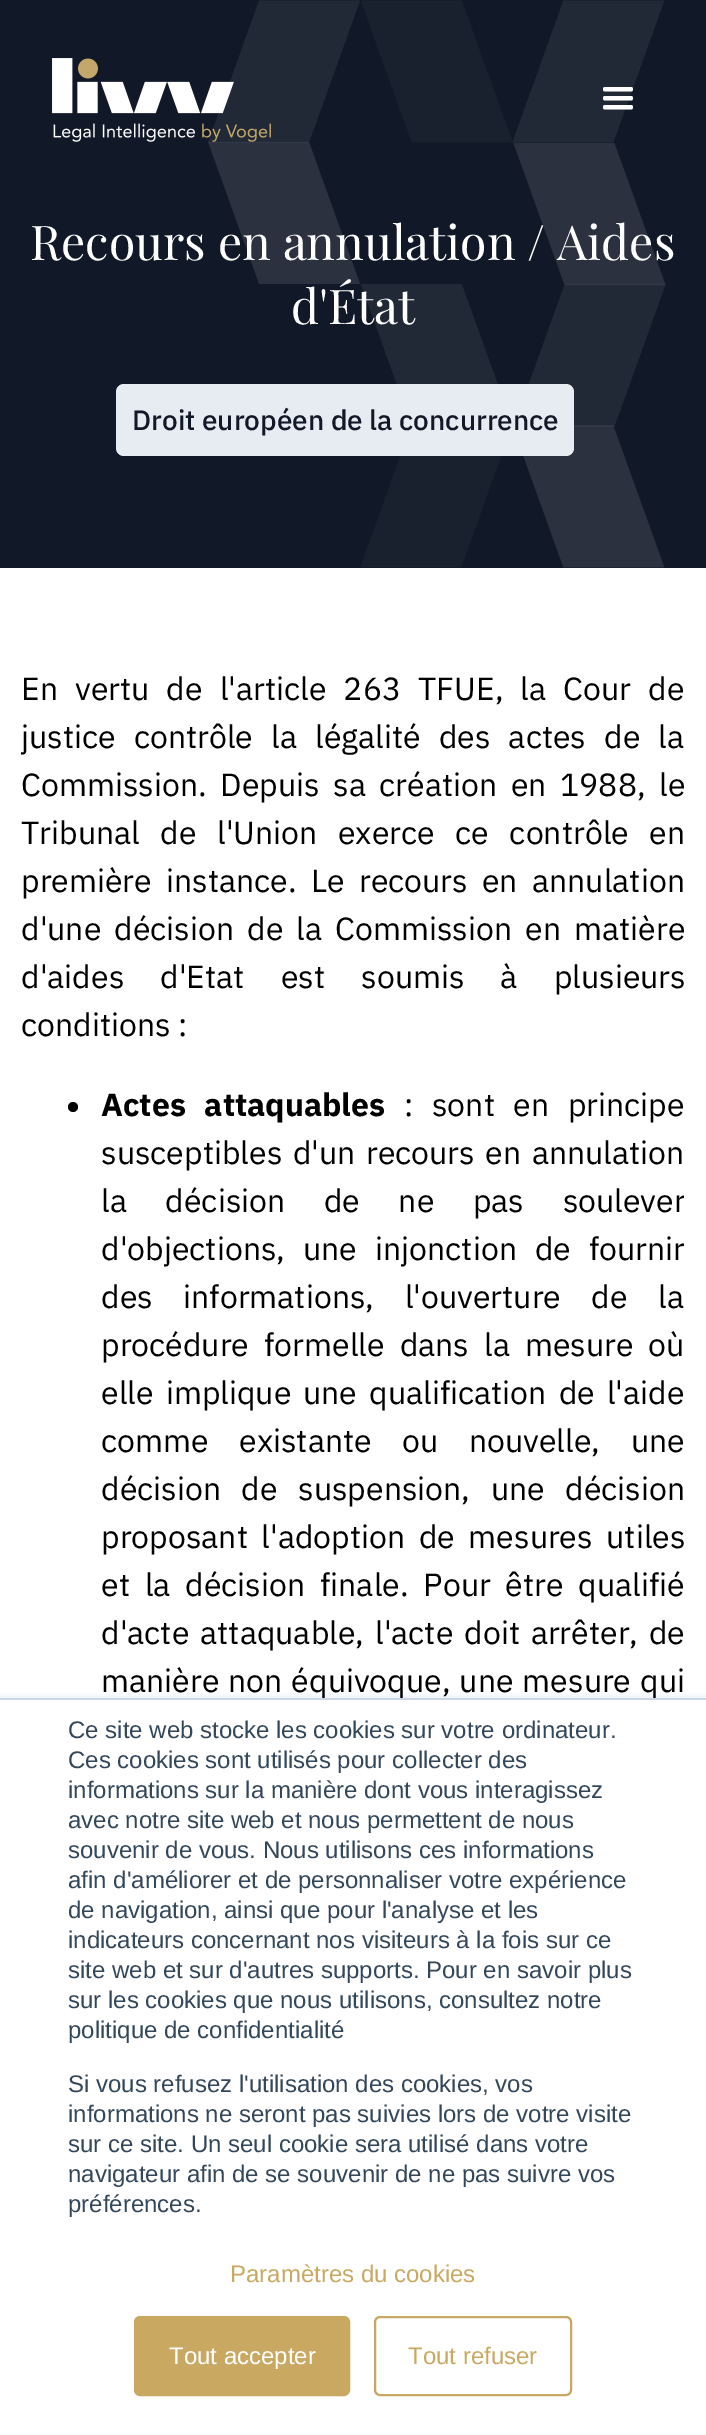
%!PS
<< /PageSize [706 2435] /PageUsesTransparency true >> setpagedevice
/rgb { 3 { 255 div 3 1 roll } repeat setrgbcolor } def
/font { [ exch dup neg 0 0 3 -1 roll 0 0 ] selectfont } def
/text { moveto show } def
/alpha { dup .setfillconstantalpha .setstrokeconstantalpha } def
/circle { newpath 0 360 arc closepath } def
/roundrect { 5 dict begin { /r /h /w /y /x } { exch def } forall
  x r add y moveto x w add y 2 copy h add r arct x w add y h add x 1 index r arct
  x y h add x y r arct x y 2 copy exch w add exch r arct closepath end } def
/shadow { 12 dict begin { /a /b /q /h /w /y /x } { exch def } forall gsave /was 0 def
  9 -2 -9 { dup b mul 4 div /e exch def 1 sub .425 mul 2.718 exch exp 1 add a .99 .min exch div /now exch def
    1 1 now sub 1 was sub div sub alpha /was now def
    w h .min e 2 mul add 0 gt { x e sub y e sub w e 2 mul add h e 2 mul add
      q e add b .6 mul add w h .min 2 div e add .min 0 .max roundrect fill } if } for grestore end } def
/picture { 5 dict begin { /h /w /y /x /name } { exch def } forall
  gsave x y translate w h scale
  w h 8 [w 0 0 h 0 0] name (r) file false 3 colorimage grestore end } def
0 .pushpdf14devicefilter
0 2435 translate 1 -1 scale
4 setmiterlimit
255 255 255 rgb
0 0 706 2435 rectfill
17 24 39 rgb
0 0 706 568 rectfill
(img_03.rgb) 208 0 458 568 picture
(img_01.rgb) 52 58 219 84 picture
(img_02.rgb) 603 87 30 23 picture
231 235 242 rgb
116 384 458 72 8 roundrect fill
0 0 0 rgb
73 1107 5 circle fill
234 240 246 rgb
0 1696 706 738 0 3 1 shadow
255 255 255 rgb
0 1700 706 735 rectfill
201 168 97 rgb
135 2317 214 78 5 roundrect gsave fill grestore
2 setlinewidth
stroke
375 2317 196 78 5 roundrect stroke
/PlayfairDisplay-Regular 48 font
255 255 255 rgb
(Recours en annulation / Aides) 30 260 text
(d'État) 291 324 text
/IBMPlexSans-Medium 28 font
17 24 39 rgb
(Droit européen de la concurrence) 132 430 text
/IBMPlexSans-Regular 32 font
0 0 0 rgb
21 700 moveto 9.5 0 32 (En vertu de l'article 263 TFUE, la Cour de) widthshow
21 748 moveto 10.5 0 32 (justice contrôle la légalité des actes de la) widthshow
21 796 moveto 6 0 32 (Commission. Depuis sa création en 1988, le) widthshow
21 844 moveto 13 0 32 (Tribunal de l'Union exerce ce contrôle en) widthshow
21 892 moveto 6.75 0 32 (première instance. Le recours en annulation) widthshow
21 940 moveto 5.5 0 32 (d'une décision de la Commission en matière) widthshow
21 988 moveto 28.5 0 32 (d'aides d'Etat est soumis à plusieurs) widthshow
(conditions :) 21 1036 text
/IBMPlexSans-Bold 32 font
101 1116 moveto 11 0 32 (Actes attaquables) widthshow
/IBMPlexSans-Regular 32 font
404 1116 moveto 11 0 32 (: sont en principe) widthshow
101 1164 moveto 3 0 32 (susceptibles d'un recours en annulation) widthshow
gsave
22 1080 662 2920 rectclip
101 1212 moveto 31 0 32 (la décision de ne pas soulever) widthshow
101 1260 moveto 10.5 0 32 (d'objections, une injonction de fournir) widthshow
grestore
101 1308 moveto 23 0 32 (des informations, l'ouverture de la) widthshow
101 1356 moveto 7.5 0 32 (procédure formelle dans la mesure où) widthshow
101 1404 moveto 4.5 0 32 (elle implique une qualification de l'aide) widthshow
101 1452 moveto 23 0 32 (comme existante ou nouvelle, une) widthshow
101 1500 moveto 13 0 32 (décision de suspension, une décision) widthshow
101 1548 moveto 6 0 32 (proposant l'adoption de mesures utiles) widthshow
101 1596 moveto 7.25 0 32 (et la décision finale. Pour être qualifié) widthshow
101 1644 moveto 3.25 0 32 (d'acte attaquable, l'acte doit arrêter, de) widthshow
101 1692 moveto 1.5 0 32 (manière non équivoque, une mesure qui) widthshow
203 214 226 rgb
0 1698 706 2 rectfill
/LiberationSans-Regular 24 font
51 71 91 rgb
(Ce site web stocke les cookies sur votre ordinateur.) 68 1738 text
(Ces cookies sont utilisés pour collecter des) 68 1768 text
(informations sur la manière dont vous interagissez) 68 1798 text
(avec notre site web et nous permettent de nous) 68 1828 text
(souvenir de vous. Nous utilisons ces informations) 68 1858 text
(afin d'améliorer et de personnaliser votre expérience) 68 1888 text
(de navigation, ainsi que pour l'analyse et les) 68 1918 text
(indicateurs concernant nos visiteurs à la fois sur ce) 68 1948 text
(site web et sur d'autres supports. Pour en savoir plus) 68 1978 text
(sur les cookies que nous utilisons, consultez notre) 68 2008 text
(politique de confidentialité) 68 2038 text
(Si vous refusez l'utilisation des cookies, vos) 68 2092 text
(informations ne seront pas suivies lors de votre visite) 68 2122 text
(sur ce site. Un seul cookie sera utilisé dans votre) 68 2152 text
(navigateur afin de se souvenir de ne pas suivre vos) 68 2182 text
(préférences.) 68 2212 text
201 168 97 rgb
(Paramètres du cookies) 230 2282 text
255 255 255 rgb
(Tout accepter) 169 2364 text
201 168 97 rgb
(Tout refuser) 408 2364 text
.poppdf14devicefilter showpage
